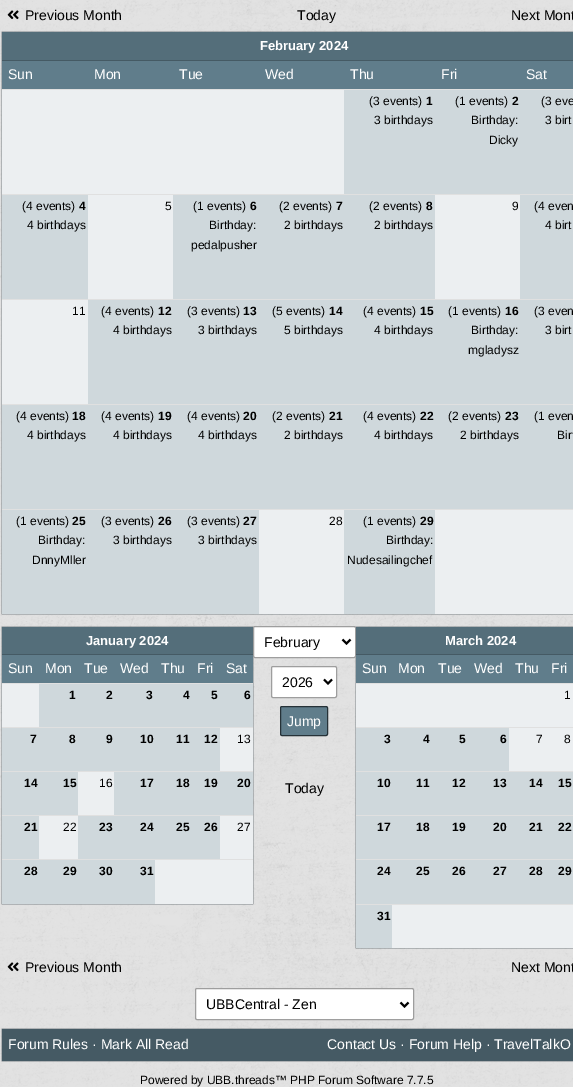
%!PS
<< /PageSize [573 1087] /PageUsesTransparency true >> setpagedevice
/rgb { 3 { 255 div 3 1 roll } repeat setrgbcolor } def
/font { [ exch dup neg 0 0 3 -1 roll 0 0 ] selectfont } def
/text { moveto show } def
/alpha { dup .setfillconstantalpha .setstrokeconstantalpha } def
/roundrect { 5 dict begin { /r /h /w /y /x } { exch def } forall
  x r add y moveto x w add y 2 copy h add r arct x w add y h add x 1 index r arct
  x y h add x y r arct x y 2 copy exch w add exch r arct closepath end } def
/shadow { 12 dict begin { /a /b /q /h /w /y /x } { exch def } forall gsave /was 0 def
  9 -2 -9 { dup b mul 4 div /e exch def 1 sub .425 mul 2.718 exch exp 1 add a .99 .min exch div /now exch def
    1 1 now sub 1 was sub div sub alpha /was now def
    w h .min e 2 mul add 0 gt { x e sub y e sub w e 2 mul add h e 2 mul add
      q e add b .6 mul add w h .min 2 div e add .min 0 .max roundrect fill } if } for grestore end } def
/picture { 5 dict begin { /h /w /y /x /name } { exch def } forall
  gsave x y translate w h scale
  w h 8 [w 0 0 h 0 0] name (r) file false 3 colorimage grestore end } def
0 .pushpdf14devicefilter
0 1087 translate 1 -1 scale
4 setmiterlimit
255 255 255 rgb
0 0 573 1087 rectfill
(img_01.rgb) 0 0 573 1087 picture
(img_02.rgb) 7 10 12 10 picture
38 50 56 rgb
2 32 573 582 0 0.5 1 shadow
84 110 122 rgb
2 32 571 28 rectfill
69 90 100 rgb
2 60 571 1 rectfill
96 125 139 rgb
2 61 571 28 rectfill
236 239 241 rgb
2 90 342 104 rectfill
224 224 224 rgb
2 89 571 1 rectfill
207 216 220 rgb
344 90 229 104 rectfill
2 195 86 104 rectfill
224 224 224 rgb
2 194 571 1 rectfill
236 239 241 rgb
88 195 85 104 rectfill
207 216 220 rgb
173 195 262 104 rectfill
236 239 241 rgb
435 195 85 104 rectfill
207 216 220 rgb
520 195 53 104 rectfill
236 239 241 rgb
2 300 86 104 rectfill
224 224 224 rgb
2 299 571 1 rectfill
207 216 220 rgb
88 300 485 104 rectfill
2 405 571 104 rectfill
224 224 224 rgb
2 404 571 1 rectfill
207 216 220 rgb
2 510 257 104 rectfill
224 224 224 rgb
2 509 571 1 rectfill
236 239 241 rgb
259 510 85 104 rectfill
207 216 220 rgb
344 510 91 104 rectfill
236 239 241 rgb
435 510 138 104 rectfill
38 50 56 rgb
2 627 251 277 0 0.5 1 shadow
84 110 122 rgb
2 627 251 27 rectfill
69 90 100 rgb
2 654 251 1 rectfill
96 125 139 rgb
2 655 251 28 rectfill
236 239 241 rgb
2 684 37 43 rectfill
224 224 224 rgb
2 683 251 1 rectfill
207 216 220 rgb
39 684 214 43 rectfill
2 728 218 43 rectfill
224 224 224 rgb
2 727 251 1 rectfill
236 239 241 rgb
220 728 33 43 rectfill
207 216 220 rgb
2 772 76 43 rectfill
224 224 224 rgb
2 771 251 1 rectfill
236 239 241 rgb
78 772 36 43 rectfill
207 216 220 rgb
114 772 139 43 rectfill
2 816 37 43 rectfill
224 224 224 rgb
2 815 251 1 rectfill
236 239 241 rgb
39 816 39 43 rectfill
207 216 220 rgb
78 816 142 43 rectfill
236 239 241 rgb
220 816 33 43 rectfill
207 216 220 rgb
2 860 153 44 rectfill
224 224 224 rgb
2 859 251 1 rectfill
236 239 241 rgb
155 860 98 44 rectfill
38 50 56 rgb
356 627 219 321 0 0.5 1 shadow
255 255 255 rgb
253.5 626.5 102 31 1.5 roundrect gsave fill grestore
158 158 158 rgb
stroke
0 0 0 rgb
2 setlinewidth
342.5 639.5 moveto 4 4 rlineto 4 -4 rlineto stroke
255 255 255 rgb
271.5 666.5 65 31 1.5 roundrect gsave fill grestore
158 158 158 rgb
1 setlinewidth
stroke
0 0 0 rgb
2 setlinewidth
324 679.5 moveto 4 4 rlineto 4 -4 rlineto stroke
96 125 139 rgb
280.5 706.5 47 29 1.5 roundrect gsave fill grestore
38 50 56 rgb
1 setlinewidth
stroke
84 110 122 rgb
356 627 217 27 rectfill
69 90 100 rgb
356 654 217 1 rectfill
96 125 139 rgb
356 655 217 28 rectfill
236 239 241 rgb
356 684 217 43 rectfill
224 224 224 rgb
356 683 217 1 rectfill
207 216 220 rgb
356 728 153 43 rectfill
224 224 224 rgb
356 727 217 1 rectfill
236 239 241 rgb
509 728 64 43 rectfill
207 216 220 rgb
356 772 217 43 rectfill
224 224 224 rgb
356 771 217 1 rectfill
207 216 220 rgb
356 816 217 43 rectfill
224 224 224 rgb
356 815 217 1 rectfill
207 216 220 rgb
356 860 217 44 rectfill
224 224 224 rgb
356 859 217 1 rectfill
207 216 220 rgb
356 905 36 43 rectfill
224 224 224 rgb
356 904 217 1 rectfill
236 239 241 rgb
392 905 181 43 rectfill
(img_03.rgb) 7 962 12 10 picture
255 255 255 rgb
195.5 988.5 218 31 1.5 roundrect gsave fill grestore
158 158 158 rgb
stroke
0 0 0 rgb
2 setlinewidth
400.5 1002.5 moveto 4 4 rlineto 4 -4 rlineto stroke
38 50 56 rgb
2 1029 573 32 0 0.5 1 shadow
69 90 100 rgb
2 1029 571 32 rectfill
/LiberationSans-Regular 14 font
0 0 0 rgb
(Previous Month) 25 20 text
(Today) 297 20 text
(Next Mont) 511 20 text
/LiberationSans-Bold 13 font
255 255 255 rgb
(February 2024) 260 50 text
/LiberationSans-Regular 14 font
(Sun) 8 79 text
(Mon) 94 79 text
(Tue) 179 79 text
(Wed) 265 79 text
(Thu) 350 79 text
(Fri) 441 79 text
(Sat) 526 79 text
/LiberationSans-Regular 12 font
0 0 0 rgb
(\(3 events\)) 369 105 text
/LiberationSans-Bold 12 font
(1) 426 105 text
/LiberationSans-Regular 12 font
(3 birthdays) 374 124 text
(\(1 events\)) 455 105 text
/LiberationSans-Bold 12 font
(2) 512 105 text
/LiberationSans-Regular 12 font
(Birthday:) 471 124 text
(Dicky) 489 144 text
(\(3 eve) 541 105 text
(3 birt) 545 124 text
(\(4 events\)) 22 210 text
/LiberationSans-Bold 12 font
(4) 79 210 text
/LiberationSans-Regular 12 font
(4 birthdays) 27 229 text
(5) 165 210 text
(\(1 events\)) 193 210 text
/LiberationSans-Bold 12 font
(6) 250 210 text
/LiberationSans-Regular 12 font
(Birthday:) 209 229 text
(pedalpusher) 191 249 text
(\(2 events\)) 279 210 text
/LiberationSans-Bold 12 font
(7) 336 210 text
/LiberationSans-Regular 12 font
(2 birthdays) 284 229 text
(\(2 events\)) 369 210 text
/LiberationSans-Bold 12 font
(8) 426 210 text
/LiberationSans-Regular 12 font
(2 birthdays) 374 229 text
(9) 512 210 text
(\(4 even) 534 210 text
(4 birt) 545 229 text
(11) 72 315 text
(\(4 events\)) 101 315 text
/LiberationSans-Bold 12 font
(12) 158 315 text
/LiberationSans-Regular 12 font
(4 birthdays) 113 334 text
(\(3 events\)) 187 315 text
/LiberationSans-Bold 12 font
(13) 243 315 text
/LiberationSans-Regular 12 font
(3 birthdays) 198 334 text
(\(5 events\)) 272 315 text
/LiberationSans-Bold 12 font
(14) 329 315 text
/LiberationSans-Regular 12 font
(5 birthdays) 284 334 text
(\(4 events\)) 363 315 text
/LiberationSans-Bold 12 font
(15) 420 315 text
/LiberationSans-Regular 12 font
(4 birthdays) 374 334 text
(\(1 events\)) 448 315 text
/LiberationSans-Bold 12 font
(16) 505 315 text
/LiberationSans-Regular 12 font
(Birthday:) 471 334 text
(mgladysz) 468 354 text
(\(3 even) 534 315 text
(3 birt) 545 334 text
(\(4 events\)) 16 420 text
/LiberationSans-Bold 12 font
(18) 72 420 text
/LiberationSans-Regular 12 font
(4 birthdays) 27 439 text
(\(4 events\)) 101 420 text
/LiberationSans-Bold 12 font
(19) 158 420 text
/LiberationSans-Regular 12 font
(4 birthdays) 113 439 text
(\(4 events\)) 187 420 text
/LiberationSans-Bold 12 font
(20) 243 420 text
/LiberationSans-Regular 12 font
(4 birthdays) 198 439 text
(\(2 events\)) 272 420 text
/LiberationSans-Bold 12 font
(21) 329 420 text
/LiberationSans-Regular 12 font
(2 birthdays) 284 439 text
(\(4 events\)) 363 420 text
/LiberationSans-Bold 12 font
(22) 420 420 text
/LiberationSans-Regular 12 font
(4 birthdays) 374 439 text
(\(2 events\)) 448 420 text
/LiberationSans-Bold 12 font
(23) 505 420 text
/LiberationSans-Regular 12 font
(2 birthdays) 460 439 text
(\(1 even) 534 420 text
(Birt) 557 439 text
(\(1 events\)) 16 525 text
/LiberationSans-Bold 12 font
(25) 72 525 text
/LiberationSans-Regular 12 font
(Birthday:) 38 544 text
(DnnyMller) 32 564 text
(\(3 events\)) 101 525 text
/LiberationSans-Bold 12 font
(26) 158 525 text
/LiberationSans-Regular 12 font
(3 birthdays) 113 544 text
(\(3 events\)) 187 525 text
/LiberationSans-Bold 12 font
(27) 243 525 text
/LiberationSans-Regular 12 font
(3 birthdays) 198 544 text
(28) 329 525 text
(\(1 events\)) 363 525 text
/LiberationSans-Bold 12 font
(29) 420 525 text
/LiberationSans-Regular 12 font
(Birthday:) 386 544 text
(Nudesailingchef) 347 564 text
/LiberationSans-Bold 13 font
255 255 255 rgb
(January 2024) 86 645 text
/LiberationSans-Regular 14 font
(Sun) 8 673 text
(Mon) 45 673 text
(Tue) 84 673 text
(Wed) 120 673 text
(Thu) 161 673 text
(Fri) 197 673 text
(Sat) 226 673 text
/LiberationSans-Bold 12 font
0 0 0 rgb
(1) 69 699 text
(2) 106 699 text
(3) 146 699 text
(4) 183 699 text
(5) 211 699 text
(6) 244 699 text
(7) 30 743 text
(8) 69 743 text
(9) 106 743 text
(10) 140 743 text
(11) 176 743 text
(12) 204 743 text
/LiberationSans-Regular 12 font
(13) 237 743 text
/LiberationSans-Bold 12 font
(14) 24 787 text
(15) 63 787 text
/LiberationSans-Regular 12 font
(16) 99 787 text
/LiberationSans-Bold 12 font
(17) 140 787 text
(18) 176 787 text
(19) 204 787 text
(20) 237 787 text
(21) 24 831 text
/LiberationSans-Regular 12 font
(22) 63 831 text
/LiberationSans-Bold 12 font
(23) 99 831 text
(24) 140 831 text
(25) 176 831 text
(26) 204 831 text
/LiberationSans-Regular 12 font
(27) 237 831 text
/LiberationSans-Bold 12 font
(28) 24 875 text
(29) 63 875 text
(30) 99 875 text
(31) 140 875 text
/LiberationSans-Regular 14 font
(February) 264 647 text
(2026) 282 687 text
255 255 255 rgb
(Jump) 287 726 text
0 0 0 rgb
(Today) 285 793 text
/LiberationSans-Bold 13 font
255 255 255 rgb
(March 2024) 445 645 text
/LiberationSans-Regular 14 font
(Sun) 362 673 text
(Mon) 398 673 text
(Tue) 438 673 text
(Wed) 474 673 text
(Thu) 515 673 text
(Fri) 551 673 text
/LiberationSans-Regular 12 font
0 0 0 rgb
(1) 564 699 text
/LiberationSans-Bold 12 font
(3) 384 743 text
(4) 423 743 text
(5) 459 743 text
(6) 500 743 text
/LiberationSans-Regular 12 font
(7) 536 743 text
(8) 564 743 text
/LiberationSans-Bold 12 font
(10) 377 787 text
(11) 416 787 text
(12) 452 787 text
(13) 493 787 text
(14) 529 787 text
(15) 558 787 text
(17) 377 831 text
(18) 416 831 text
(19) 452 831 text
(20) 493 831 text
(21) 529 831 text
(22) 558 831 text
(24) 377 875 text
(25) 416 875 text
(26) 452 875 text
(27) 493 875 text
(28) 529 875 text
(29) 558 875 text
(31) 377 920 text
/LiberationSans-Regular 14 font
(Previous Month) 25 972 text
(Next Mont) 511 972 text
(UBBCentral - Zen) 206 1009 text
255 255 255 rgb
(Forum Rules · Mark All Read) 8 1049 text
(Contact Us · Forum Help · TravelTalkO) 327 1049 text
/LiberationSans-Regular 12 font
0 0 0 rgb
(Powered by UBB.threads™ PHP Forum Software 7.7.5) 140 1084 text
.poppdf14devicefilter showpage
